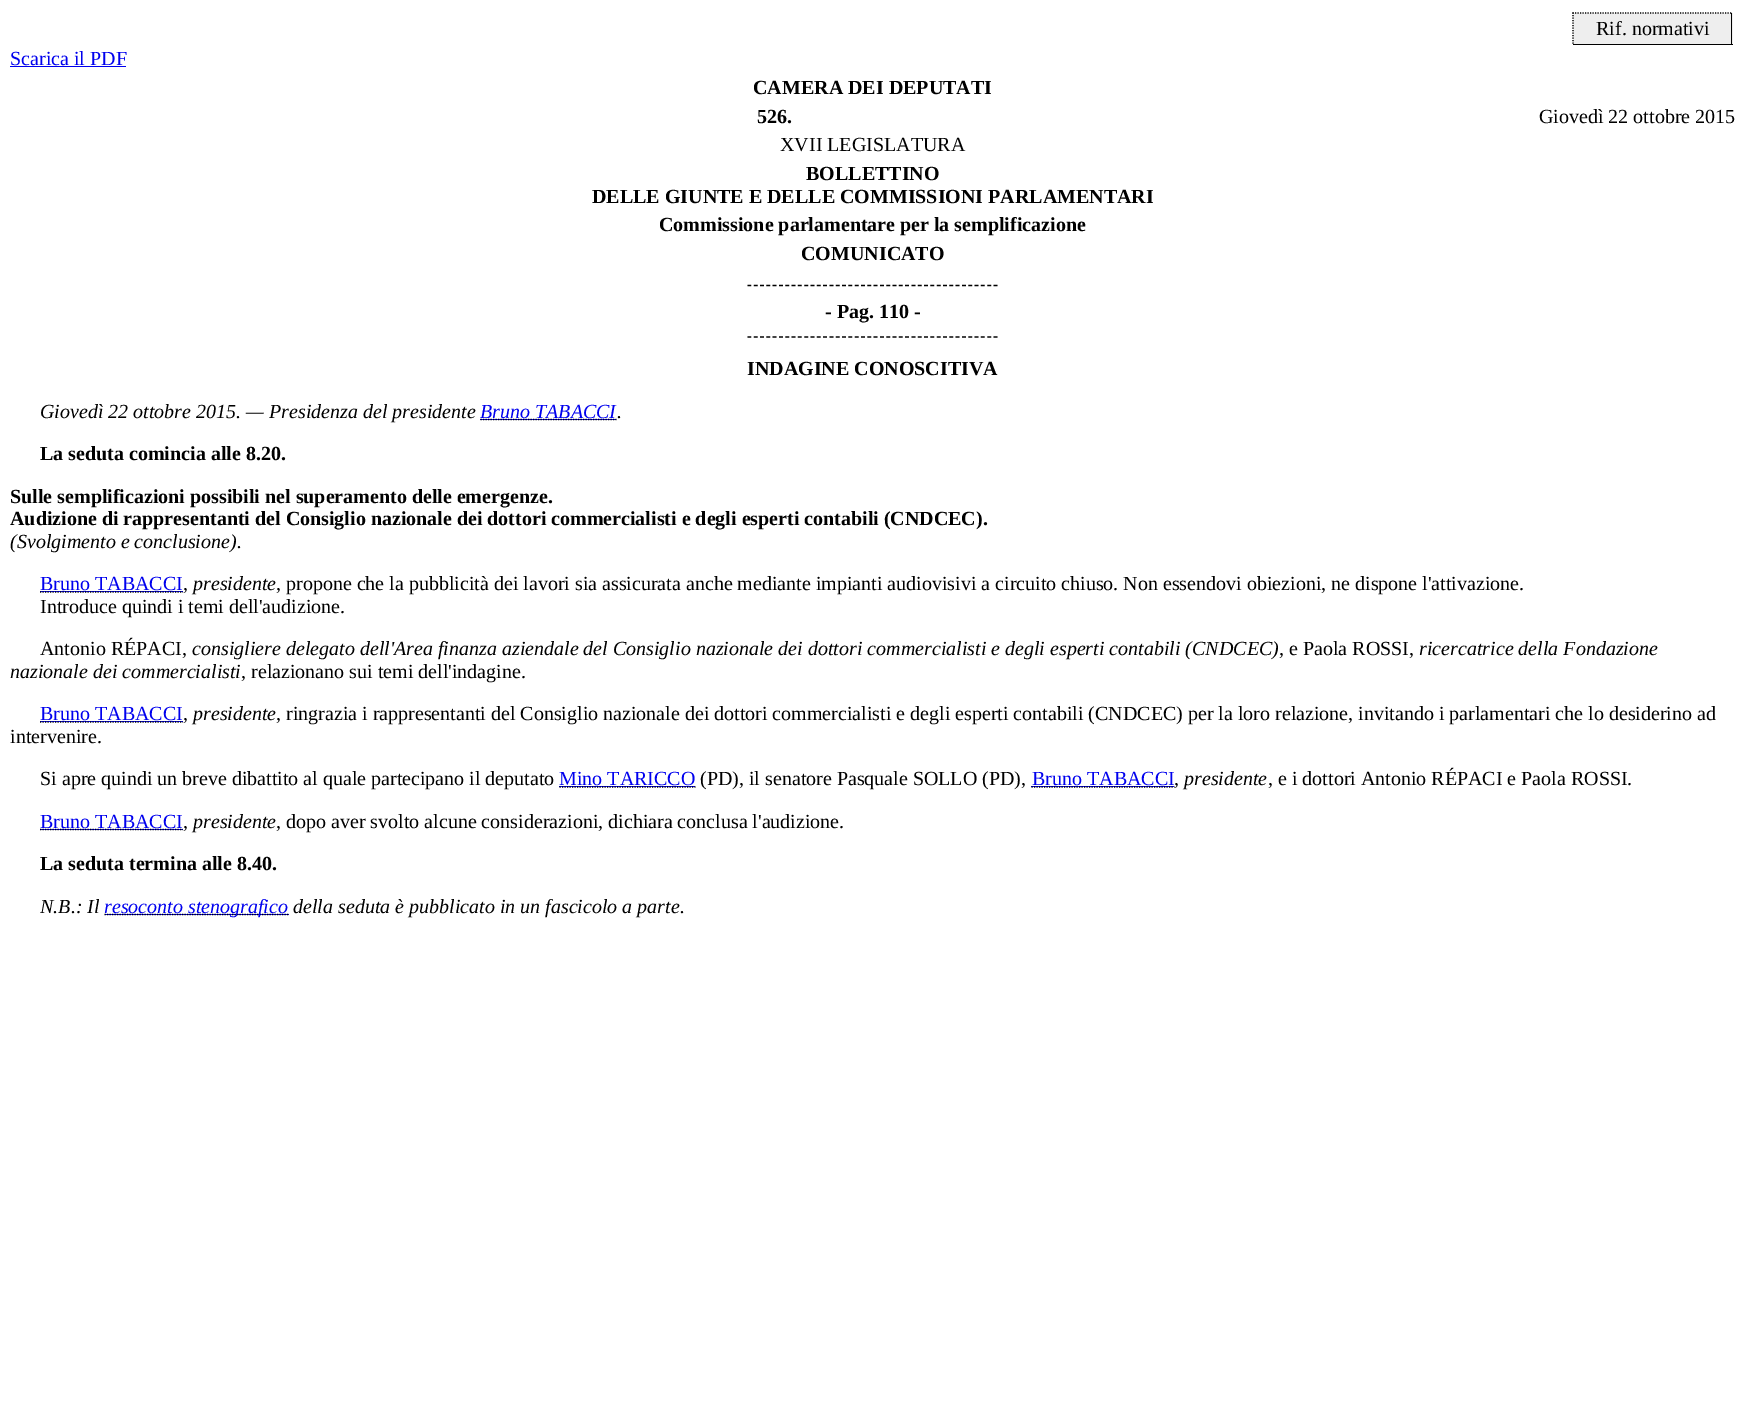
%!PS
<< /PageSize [1745 1404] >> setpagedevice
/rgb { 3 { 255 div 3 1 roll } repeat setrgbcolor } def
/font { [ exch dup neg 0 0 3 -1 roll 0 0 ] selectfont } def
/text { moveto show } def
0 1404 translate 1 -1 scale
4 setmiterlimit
255 255 255 rgb
0 0 1745 1404 rectfill
238 238 238 rgb
1573 13 160 31 rectfill
0 0 0 rgb
1.2 setlinewidth
[1.25 1.25] 0 setdash
1572.5 13 moveto 160 0 rlineto stroke
1731 13 1 32 rectfill
1573 44 160 1 rectfill
1573 12.5 moveto 0 32.5 rlineto stroke
0 0 238 rgb
10 66 116 1 rectfill
0 0 0 rgb
[3.75 2.56] 0 setdash
747.5 285.5 moveto 250 0 rlineto stroke
747.5 337 moveto 250 0 rlineto stroke
0 0 238 rgb
480 419 136 1 rectfill
0 0 0 rgb
[1.25 1.25] 0 setdash
480.5 419.5 moveto 136 0 rlineto stroke
0 0 238 rgb
40 591 143 1 rectfill
0 0 0 rgb
40 592 moveto 143 0 rlineto stroke
0 0 238 rgb
40 721 143 1 rectfill
0 0 0 rgb
40 722 moveto 143 0 rlineto stroke
0 0 238 rgb
559 786 136 1 rectfill
0 0 0 rgb
559.5 787 moveto 136 0 rlineto stroke
0 0 238 rgb
1031 786 143 1 rectfill
0 0 0 rgb
1031.5 787 moveto 143 0 rlineto stroke
0 0 238 rgb
40 829 143 1 rectfill
0 0 0 rgb
40 829.5 moveto 143 0 rlineto stroke
0 0 238 rgb
105 914 184 1 rectfill
0 0 0 rgb
104.5 914.5 moveto 184 0 rlineto stroke
/LiberationSerif-Regular 20 font
(Rif. normativi) 1596 35 text
0 0 238 rgb
(Scarica il PDF) 10 65 text
/LiberationSerif-Bold 20 font
0 0 0 rgb
(CAMERA DEI DEPUTATI) 753 94 text
(526.) 757 123 text
/LiberationSerif-Regular 20 font
(Giovedì 22 ottobre 2015) 1539 123 text
(XVII LEGISLATURA) 780 151 text
/LiberationSerif-Bold 20 font
(BOLLETTINO) 806 180 text
(DELLE GIUNTE E DELLE COMMISSIONI PARLAMENTARI) 592 203 text
(Commissione parlamentare per la semplificazione) 659 231 text
(COMUNICATO) 801 260 text
(- Pag. 110 -) 825 318 text
(INDAGINE CONOSCITIVA) 747 375 text
/LiberationSerif-Italic 20 font
(Giovedì 22 ottobre 2015. — Presidenza del presidente) 40 418 text
0 0 238 rgb
(Bruno TABACCI) 480 418 text
0 0 0 rgb
(.) 617 418 text
/LiberationSerif-Bold 20 font
(La seduta comincia alle 8.20.) 40 460 text
(Sulle semplificazioni possibili nel superamento delle emergenze.) 10 503 text
(Audizione di rappresentanti del Consiglio nazionale dei dottori commercialisti e degli esperti contabili \(CNDCEC\).) 10 525 text
/LiberationSerif-Italic 20 font
(\(Svolgimento e conclusione\).) 10 548 text
/LiberationSerif-Regular 20 font
0 0 238 rgb
(Bruno TABACCI) 40 590 text
0 0 0 rgb
(,) 183 590 text
/LiberationSerif-Italic 20 font
(presidente) 193 590 text
/LiberationSerif-Regular 20 font
(, propone che la pubblicità dei lavori sia assicurata anche mediante impianti audiovisivi a circuito chiuso. Non essendovi obiezioni, ne dispone l'attivazione.) 276 590 text
(Introduce quindi i temi dell'audizione.) 40 613 text
(Antonio RÉPACI,) 40 655 text
/LiberationSerif-Italic 20 font
(consigliere delegato dell'Area finanza aziendale del Consiglio nazionale dei dottori commercialisti e degli esperti contabili \(CNDCEC\),) 192 655 text
/LiberationSerif-Regular 20 font
(e Paola ROSSI,) 1289 655 text
/LiberationSerif-Italic 20 font
(ricercatrice della Fondazione) 1419 655 text
(nazionale dei commercialisti) 10 678 text
/LiberationSerif-Regular 20 font
(, relazionano sui temi dell'indagine.) 241 678 text
0 0 238 rgb
(Bruno TABACCI) 40 720 text
0 0 0 rgb
(,) 183 720 text
/LiberationSerif-Italic 20 font
(presidente) 193 720 text
/LiberationSerif-Regular 20 font
(, ringrazia i rappresentanti del Consiglio nazionale dei dottori commercialisti e degli esperti contabili \(CNDCEC\) per la loro relazione, invitando i parlamentari che lo desiderino ad) 276 720 text
(intervenire.) 10 743 text
(Si apre quindi un breve dibattito al quale partecipano il deputato) 40 785 text
0 0 238 rgb
(Mino TARICCO) 559 785 text
0 0 0 rgb
(\(PD\), il senatore Pasquale SOLLO \(PD\),) 700 785 text
0 0 238 rgb
(Bruno TABACCI) 1032 785 text
0 0 0 rgb
(,) 1174 785 text
/LiberationSerif-Italic 20 font
(presidente) 1184 785 text
/LiberationSerif-Regular 20 font
(, e i dottori Antonio RÉPACI e Paola ROSSI.) 1268 785 text
0 0 238 rgb
(Bruno TABACCI) 40 828 text
0 0 0 rgb
(,) 183 828 text
/LiberationSerif-Italic 20 font
(presidente) 193 828 text
/LiberationSerif-Regular 20 font
(, dopo aver svolto alcune considerazioni, dichiara conclusa l'audizione.) 276 828 text
/LiberationSerif-Bold 20 font
(La seduta termina alle 8.40.) 40 870 text
/LiberationSerif-Italic 20 font
(N.B.: Il) 40 913 text
0 0 238 rgb
(resoconto stenografico) 104 913 text
0 0 0 rgb
(della seduta è pubblicato in un fascicolo a parte.) 293 913 text
showpage
